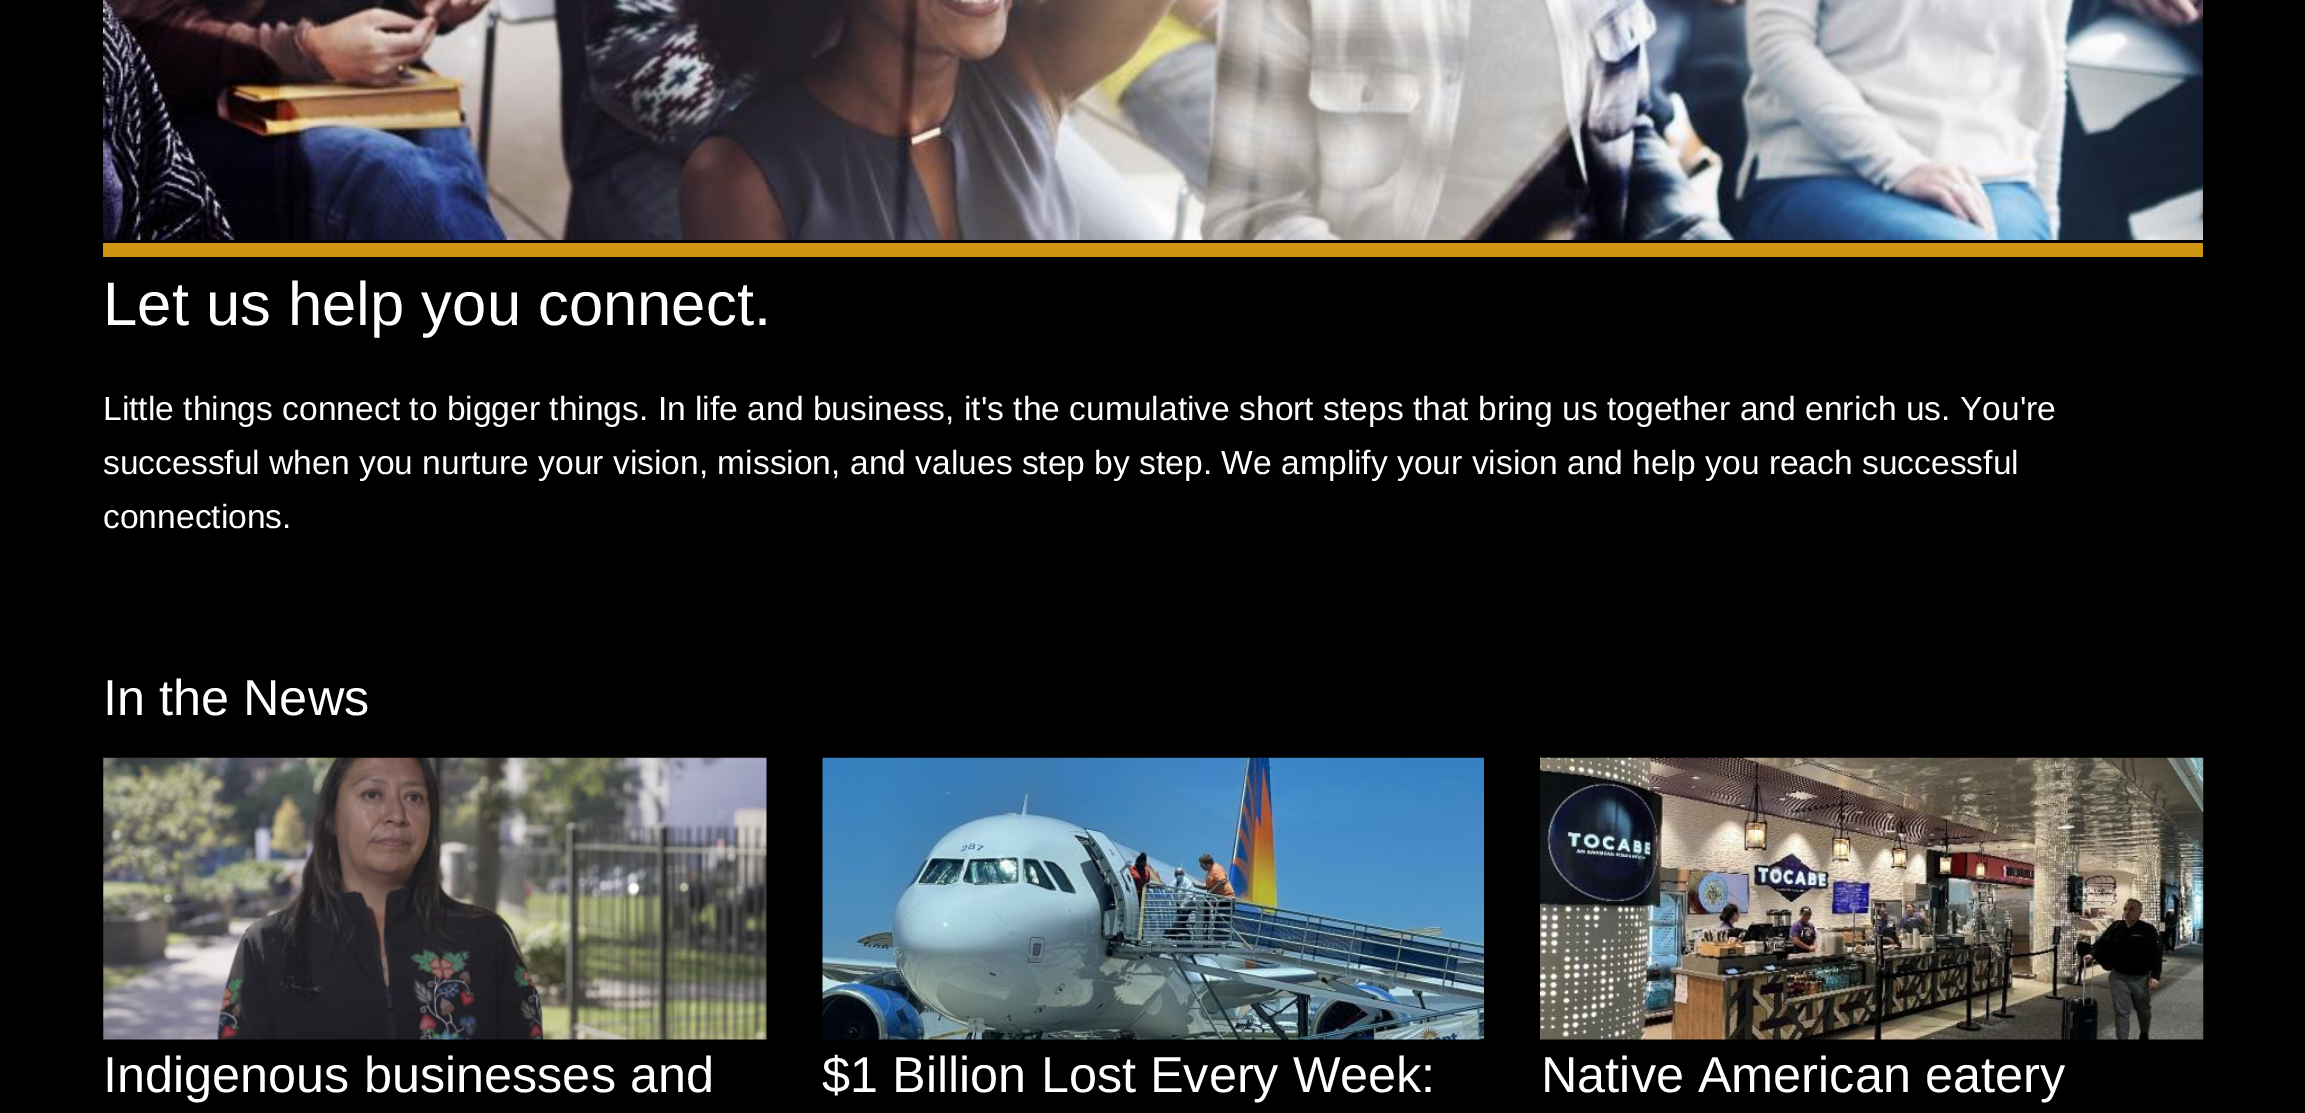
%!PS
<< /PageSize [2305 1113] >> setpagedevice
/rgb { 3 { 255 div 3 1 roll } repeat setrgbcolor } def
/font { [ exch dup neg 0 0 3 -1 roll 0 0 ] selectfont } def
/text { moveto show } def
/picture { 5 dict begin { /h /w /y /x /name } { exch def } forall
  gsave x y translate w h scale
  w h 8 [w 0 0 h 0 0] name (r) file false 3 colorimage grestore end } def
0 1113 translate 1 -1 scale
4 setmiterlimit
0 0 0 rgb
0 0 2305 1113 rectfill
(img_01.rgb) 103 0 2100 240 picture
207 149 17 rgb
103 243 2100 14 rectfill
(img_02.rgb) 103 757 664 283 picture
(img_03.rgb) 822 757 662 283 picture
(img_04.rgb) 1540 757 664 283 picture
/LiberationSans-Regular 61.6 font
255 255 255 rgb
(Let us help you connect.) 103 325 text
/LiberationSans-Regular 33.6 font
(Little things connect to bigger things. In life and business, it's the cumulative short steps that bring us together and enrich us. You're) 103 420 text
(successful when you nurture your vision, mission, and values step by step. We amplify your vision and help you reach successful) 103 474 text
(connections.) 103 528 text
/LiberationSans-Regular 50.4 font
(In the News) 103 715 text
(Indigenous businesses and) 103 1092 text
($1 Billion Lost Every Week:) 822 1092 text
(Native American eatery) 1541 1092 text
showpage
